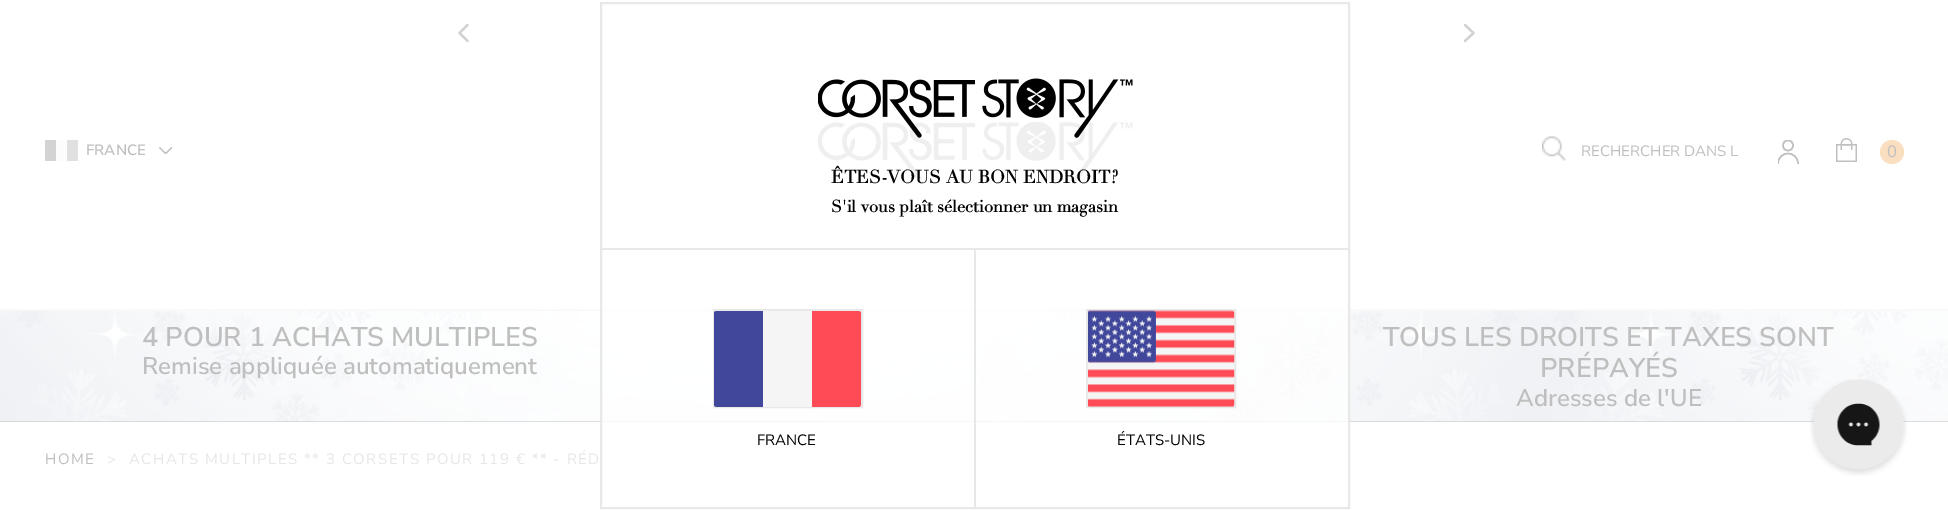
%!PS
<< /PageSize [1948 510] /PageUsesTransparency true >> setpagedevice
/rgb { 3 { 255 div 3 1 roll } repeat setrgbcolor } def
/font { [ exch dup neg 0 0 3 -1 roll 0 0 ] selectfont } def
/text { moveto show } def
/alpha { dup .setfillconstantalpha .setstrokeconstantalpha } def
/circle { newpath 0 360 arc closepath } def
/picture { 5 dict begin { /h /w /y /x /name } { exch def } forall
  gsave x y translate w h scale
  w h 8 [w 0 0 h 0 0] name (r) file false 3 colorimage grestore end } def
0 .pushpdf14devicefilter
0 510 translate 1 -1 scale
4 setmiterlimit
255 255 255 rgb
0 0 1948 510 rectfill
210 210 210 rgb
2.3 setlinewidth
1 setlinecap
1 setlinejoin
467.5 41 moveto -8 -8 rlineto 8 -8 rlineto stroke
1465 25 moveto 8.5 8 rlineto -8.5 8 rlineto stroke
(img_01.rgb) 45 140 33 21 picture
(img_02.rgb) 159 147 13 7 picture
(img_03.rgb) 818 122 315 59 picture
(img_04.rgb) 1542 136 24 25 picture
gsave
1778 140 21 24 rectclip
191 191 191 rgb
1.5 setlinewidth
0 setlinecap
0 setlinejoin
1788 163.5 10 circle stroke
1793 145.5 moveto 0 7 -10 7 -10 0 rcurveto 0 -7 10 -7 10 0 rcurveto closepath stroke
grestore
(img_05.rgb) 1836 138 21 24 picture
249 222 192 rgb
1892 152 12 circle fill
249 249 249 rgb
0 309 1948 2 rectfill
191 191 191 rgb
0 421 1948 1 rectfill
(img_06.rgb) 0 311 1948 111 picture
0.75 alpha
255 255 255 rgb
602 122 746 300 rectfill
1 alpha
232 232 232 rgb
2 setlinewidth
0 setlinecap
0 setlinejoin
601 3 748 505 rectstroke
(img_07.rgb) 818 78 315 60 picture
602 248 747 2 rectfill
974 249 2 258 rectfill
714 310 148 97 rectstroke
65 71 155 rgb
763 407 moveto -46 0 rlineto -2 0 -3 -1 -3 -3 rcurveto 0 -91 rlineto 0 -1 1 -2 3 -2 rcurveto 46 0 rlineto closepath fill
245 245 245 rgb
763 311 49 96 rectfill
255 75 85 rgb
858 407 moveto -46 0 rlineto 0 -96 rlineto 46 0 rlineto 2 0 3 1 3 2 rcurveto 0 91 rlineto 0 2 -1 3 -3 3 rcurveto closepath fill
232 232 232 rgb
1087 310 148 97 rectstroke
(img_08.rgb) 1088 310 147 97 picture
(img_09.rgb) 1810 379 97 97 picture
/NunitoSans-SemiBold 15 font
191 191 191 rgb
(FRANCE) 86 155 text
/NunitoSans-Regular 15 font
(RECHERCHER DANS L) 1581 156 text
/NunitoSans-Regular 16.5 font
(0) 1887 157 text
/NunitoSans-SemiBold 27 font
(4 POUR 1 ACHATS MULTIPLES) 142 346 text
/NunitoSans-SemiBold 24 font
(Remise appliquée automatiquement) 142 374 text
/NunitoSans-SemiBold 27 font
(TOUS LES DROITS ET TAXES SONT) 1383 346 text
(PRÉPAYÉS) 1540 377 text
/NunitoSans-SemiBold 24 font
(Adresses de l'UE) 1516 406 text
/NunitoSans-Regular 15 font
45 464 moveto 1.5 0 (HOME) ashow
230 230 230 rgb
107 464 moveto 1.5 0 (>) ashow
129 464 moveto 1.5 0 (ACHATS MULTIPLES ** 3 CORSETS POUR 119 € ** - RÉD) ashow
/Didot-Bold 18 font
0 0 0 rgb
(ÊTES-VOUS AU BON ENDROIT?) 831 183 text
/Didot-Bold 16.5 font
(S'il vous plaît sélectionner un magasin) 831 212 text
/NunitoSans-Regular 15 font
(FRANCE) 757 445 text
(ÉTATS-UNIS) 1117 445 text
.poppdf14devicefilter showpage
